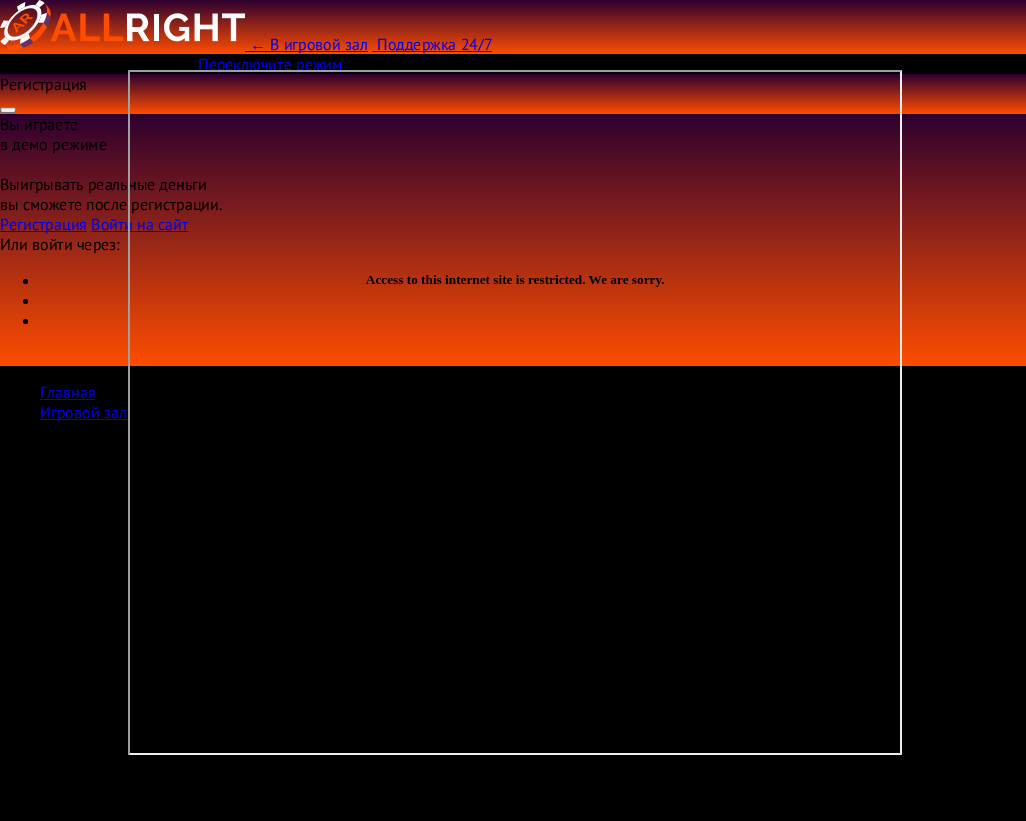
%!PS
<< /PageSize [1026 821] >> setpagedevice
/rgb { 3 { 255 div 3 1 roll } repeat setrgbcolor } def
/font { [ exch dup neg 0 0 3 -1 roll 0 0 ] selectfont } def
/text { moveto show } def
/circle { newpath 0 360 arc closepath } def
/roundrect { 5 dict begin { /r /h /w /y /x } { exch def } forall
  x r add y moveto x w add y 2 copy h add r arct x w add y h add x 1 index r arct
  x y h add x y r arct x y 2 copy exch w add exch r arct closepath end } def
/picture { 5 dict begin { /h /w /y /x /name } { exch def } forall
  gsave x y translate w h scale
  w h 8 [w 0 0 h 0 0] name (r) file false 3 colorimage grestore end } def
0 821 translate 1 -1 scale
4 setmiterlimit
0 0 0 rgb
0 0 1026 821 rectfill
gsave 0 0 moveto 1026 0 rlineto 0 54 rlineto -1026 0 rlineto closepath clip newpath
<< /ShadingType 2 /ColorSpace /DeviceRGB /Coords [513 0 513 54] /Extend [true true] /Function << /FunctionType 2 /Domain [0 1] /C0 [0.18 0 0.184] /C1 [1 0.302 0] /N 1 >> >> shfill grestore
(img_01.rgb) 0 0 245 50 picture
0 0 238 rgb
372 51 120 1 rectfill
245 51 123 1 rectfill
gsave 0 114 moveto 1026 0 rlineto 0 252 rlineto -1026 0 rlineto closepath clip newpath
<< /ShadingType 2 /ColorSpace /DeviceRGB /Coords [513 114 513 366] /Extend [true true] /Function << /FunctionType 2 /Domain [0 1] /C0 [0.18 0 0.184] /C1 [1 0.302 0] /N 1 >> >> shfill grestore
(img_02.rgb) 365 275 299 12 picture
gsave 0 74 moveto 1026 0 rlineto 0 40 rlineto -1026 0 rlineto closepath clip newpath
<< /ShadingType 2 /ColorSpace /DeviceRGB /Coords [513 74 513 114] /Extend [true true] /Function << /FunctionType 2 /Domain [0 1] /C0 [0.18 0 0.184] /C1 [1 0.302 0] /N 1 >> >> shfill grestore
239 239 239 rgb
0.5 107.5 15 5 1.5 roundrect gsave fill grestore
118 118 118 rgb
stroke
0 0 238 rgb
0 231 87 1 rectfill
91 231 97 1 rectfill
0 0 0 rgb
25.5 281.5 2.5 circle fill
25.5 301.5 2.5 circle fill
25.5 321.5 2.5 circle fill
0 0 238 rgb
40 399 55 1 rectfill
40 419 87 1 rectfill
/LiberationSans-Regular 16 font
(←) 250 50 text
/PTSans-Regular 16 font
(В игровой зал) 270 50 text
(Поддержка 24/7) 377 50 text
(Переключите режим) 198 70 text
159 159 159 rgb
128 70 moveto 774 0 rlineto -2 2 rlineto -770 0 rlineto closepath fill
238 238 238 rgb
902 70 moveto 0 685 rlineto -2 -2 rlineto 0 -681 rlineto closepath fill
902 755 moveto -774 0 rlineto 2 -2 rlineto 770 0 rlineto closepath fill
0 0 0 rgb
(Регистрация) 0 90 text
(Вы играете) 0 130 text
(в демо режиме) 0 150 text
(Выигрывать реальные деньги) 0 190 text
(вы сможете после регистрации.) 0 210 text
0 0 238 rgb
(Регистрация Войти на сайт) 0 230 text
159 159 159 rgb
128 755 moveto 0 -685 rlineto 2 2 rlineto 0 681 rlineto closepath fill
0 0 0 rgb
(Или войти через:) 0 250 text
0 0 238 rgb
(Главная) 40 398 text
(Игровой зал) 40 418 text
showpage
